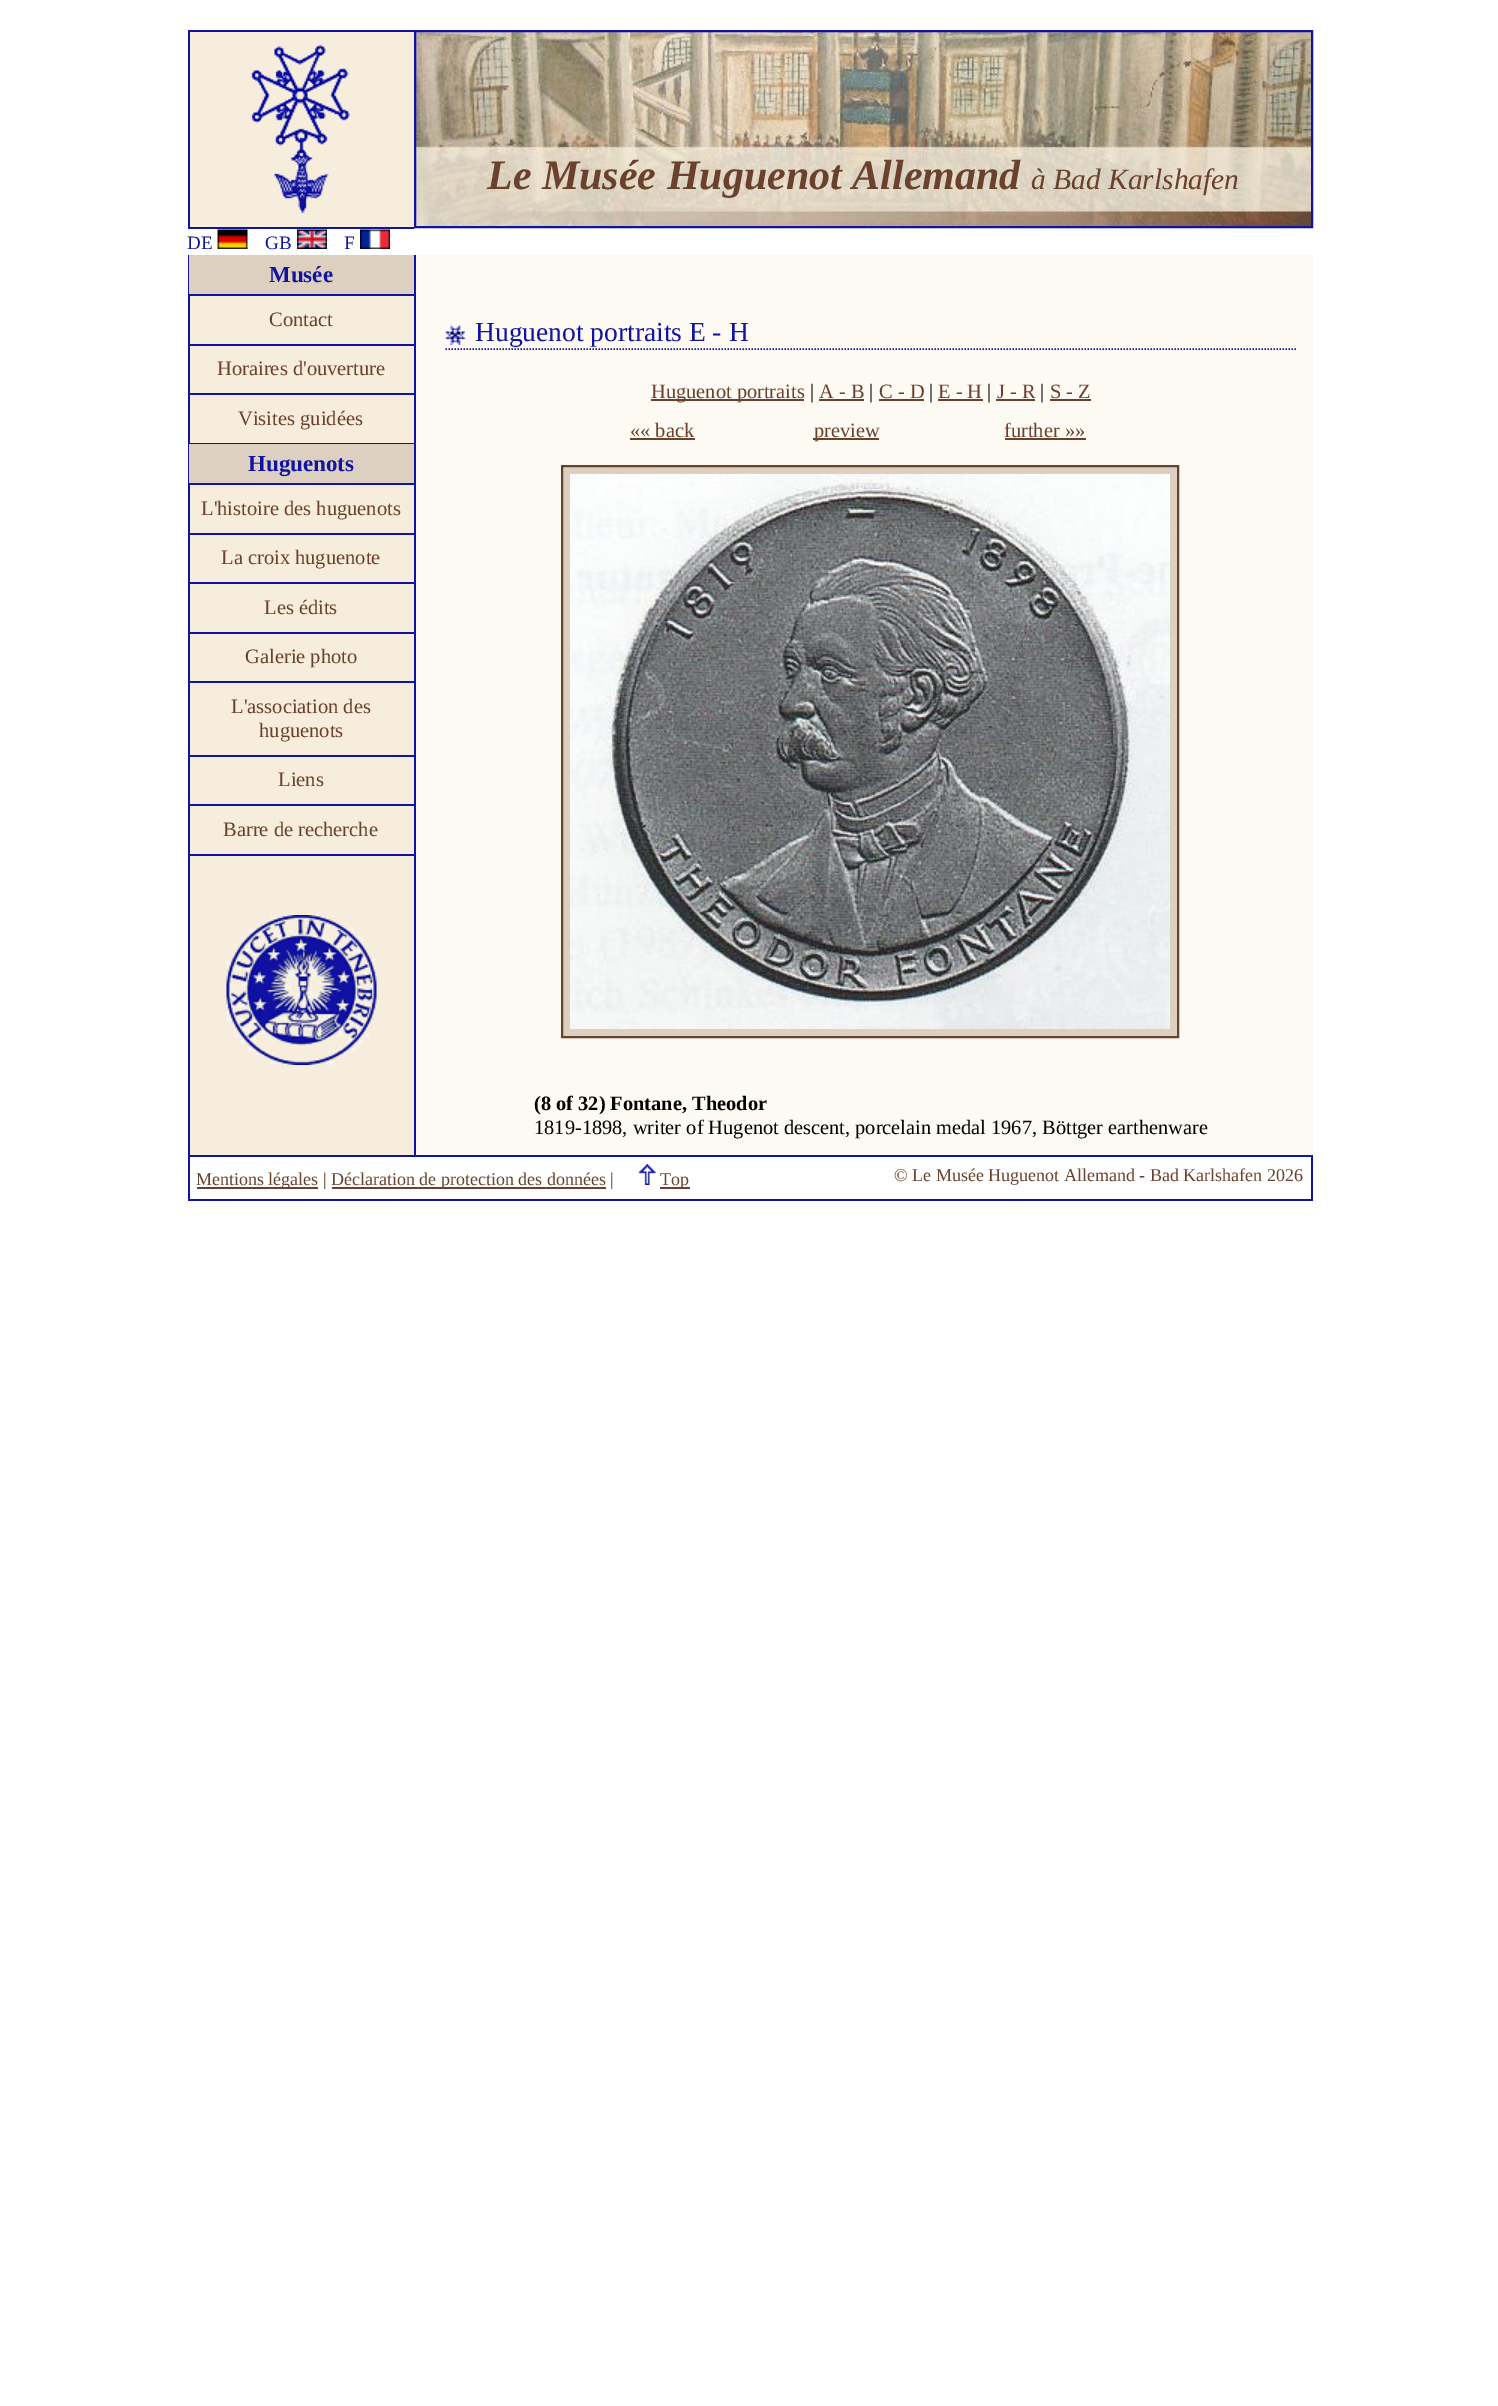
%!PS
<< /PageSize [1498 2406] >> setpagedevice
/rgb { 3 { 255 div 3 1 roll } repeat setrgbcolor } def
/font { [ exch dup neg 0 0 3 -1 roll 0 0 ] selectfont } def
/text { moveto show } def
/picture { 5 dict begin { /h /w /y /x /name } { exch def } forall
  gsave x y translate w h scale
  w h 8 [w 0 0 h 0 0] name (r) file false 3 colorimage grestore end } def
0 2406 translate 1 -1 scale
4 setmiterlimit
255 255 255 rgb
0 0 1498 2406 rectfill
246 237 220 rgb
190 32 224 195 rectfill
17 20 161 rgb
188 30 226 2 rectfill
188 227 226 2 rectfill
188 30 2 198 rectfill
(img_01.rgb) 251 44 99 171 picture
(img_02.rgb) 416 32 895 194 picture
2 setlinewidth
415 31 897 196 rectstroke
(img_03.rgb) 217 229 31 20 picture
(img_04.rgb) 297 229 30 20 picture
(img_05.rgb) 360 229 30 20 picture
246 237 220 rgb
190 296 224 859 rectfill
17 20 161 rgb
188 1155 1125 2 rectfill
188 255 2 902 rectfill
221 208 192 rgb
189 255 225 39 rectfill
17 20 161 rgb
189 294 225 2 rectfill
189 344 225 2 rectfill
189 393 225 2 rectfill
189 443 225 1 rectfill
221 208 192 rgb
189 444 225 39 rectfill
17 20 161 rgb
189 483 225 2 rectfill
189 533 225 2 rectfill
189 582 225 2 rectfill
189 632 225 2 rectfill
189 681 225 2 rectfill
189 755 225 2 rectfill
189 804 225 2 rectfill
189 854 225 2 rectfill
(img_06.rgb) 226 915 151 150 picture
253 250 243 rgb
416 255 897 900 rectfill
17 20 161 rgb
414 255 2 902 rectfill
(img_07.rgb) 445 325 20 20 picture
1.5 setlinewidth
[1.5 1.5] 0 setdash
445.5 349 moveto 852 0 rlineto stroke
106 65 44 rgb
651 399 153 2 rectfill
819 399 45 2 rectfill
879 399 45 2 rectfill
938 399 45 2 rectfill
996 399 39 2 rectfill
1050 399 41 2 rectfill
630 438 65 2 rectfill
813 438 66 2 rectfill
1005 438 81 2 rectfill
221 208 192 rgb
562 466 moveto 616 0 rlineto 0 571 rlineto -616 0 rlineto closepath gsave fill grestore
106 65 44 rgb
2 setlinewidth
[] 0 setdash
stroke
(img_08.rgb) 570 474 600 555 picture
17 20 161 rgb
1311 1157 2 43 rectfill
188 1199 1125 2 rectfill
188 1157 2 43 rectfill
106 65 44 rgb
197 1187 121 2 rectfill
332 1187 274 2 rectfill
(img_09.rgb) 638 1164 18 21 picture
660 1187 30 2 rectfill
/LiberationSerif-BoldItalic 42 font
(Le Musée Huguenot Allemand) 487 189 text
/LiberationSerif-Italic 29.5 font
(à Bad Karlshafen) 1031 189 text
/LiberationSerif-Regular 19 font
17 20 161 rgb
(DE) 187 249 text
(GB) 265 249 text
(F) 344 249 text
/LiberationSerif-Bold 23 font
(Musée) 269 282 text
/LiberationSerif-Regular 20.5 font
106 65 44 rgb
(Contact) 269 326 text
(Horaires d'ouverture) 217 375 text
(Visites guidées) 238 425 text
/LiberationSerif-Bold 23 font
17 20 161 rgb
(Huguenots) 248 471 text
/LiberationSerif-Regular 20.5 font
106 65 44 rgb
(L'histoire des huguenots) 201 515 text
(La croix huguenote) 221 564 text
(Les édits) 264 614 text
(Galerie photo) 245 663 text
(L'association des) 231 713 text
(huguenots) 259 737 text
(Liens) 278 786 text
(Barre de recherche) 223 836 text
/LiberationSerif-Regular 27.5 font
17 20 161 rgb
(Huguenot portraits E - H) 475 341 text
/LiberationSerif-Regular 20.4 font
106 65 44 rgb
(Huguenot portraits) 651 398 text
0 0 0 rgb
(|) 810 398 text
106 65 44 rgb
(A - B) 819 398 text
0 0 0 rgb
(|) 869 398 text
106 65 44 rgb
(C - D) 879 398 text
0 0 0 rgb
(|) 929 398 text
106 65 44 rgb
(E - H) 938 398 text
0 0 0 rgb
(|) 987 398 text
106 65 44 rgb
(J - R) 997 398 text
0 0 0 rgb
(|) 1040 398 text
106 65 44 rgb
(S - Z) 1050 398 text
(«« back) 630 437 text
(preview) 814 437 text
(further »») 1004 437 text
/LiberationSerif-Bold 20.4 font
0 0 0 rgb
(\(8 of 32\) Fontane, Theodor) 534 1110 text
/LiberationSerif-Regular 20.4 font
(1819-1898, writer of Hugenot descent, porcelain medal 1967, Böttger earthenware) 534 1134 text
/LiberationSerif-Regular 18 font
106 65 44 rgb
(Mentions légales |) 196 1185 text
(Déclaration de protection des données |) 331 1185 text
(Top) 660 1185 text
(© Le Musée Huguenot Allemand - Bad Karlshafen 2026) 894 1181 text
showpage
